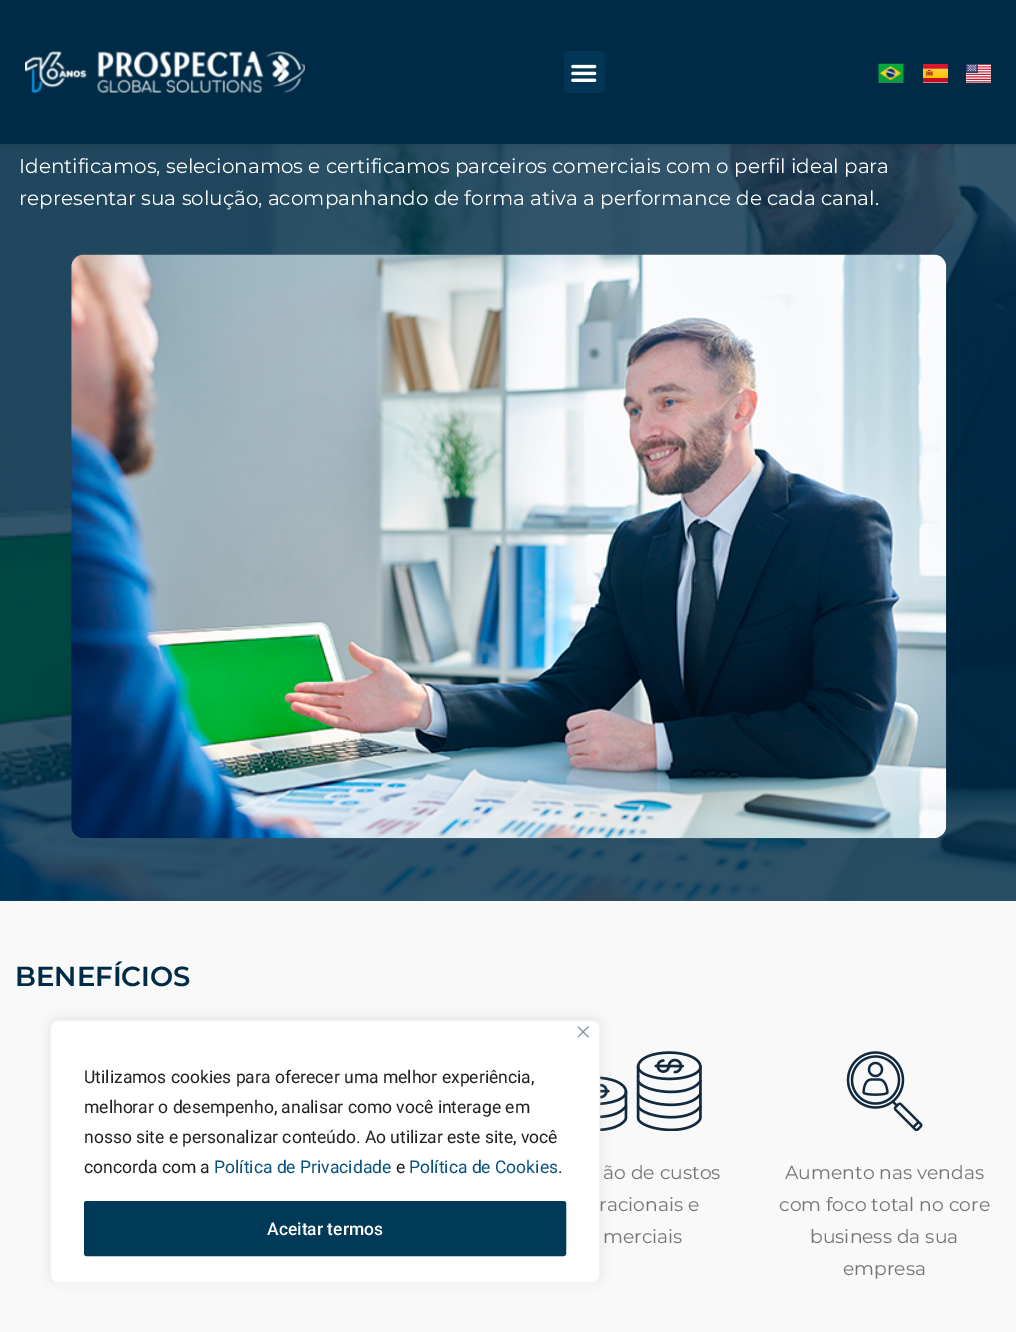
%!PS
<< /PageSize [1016 1332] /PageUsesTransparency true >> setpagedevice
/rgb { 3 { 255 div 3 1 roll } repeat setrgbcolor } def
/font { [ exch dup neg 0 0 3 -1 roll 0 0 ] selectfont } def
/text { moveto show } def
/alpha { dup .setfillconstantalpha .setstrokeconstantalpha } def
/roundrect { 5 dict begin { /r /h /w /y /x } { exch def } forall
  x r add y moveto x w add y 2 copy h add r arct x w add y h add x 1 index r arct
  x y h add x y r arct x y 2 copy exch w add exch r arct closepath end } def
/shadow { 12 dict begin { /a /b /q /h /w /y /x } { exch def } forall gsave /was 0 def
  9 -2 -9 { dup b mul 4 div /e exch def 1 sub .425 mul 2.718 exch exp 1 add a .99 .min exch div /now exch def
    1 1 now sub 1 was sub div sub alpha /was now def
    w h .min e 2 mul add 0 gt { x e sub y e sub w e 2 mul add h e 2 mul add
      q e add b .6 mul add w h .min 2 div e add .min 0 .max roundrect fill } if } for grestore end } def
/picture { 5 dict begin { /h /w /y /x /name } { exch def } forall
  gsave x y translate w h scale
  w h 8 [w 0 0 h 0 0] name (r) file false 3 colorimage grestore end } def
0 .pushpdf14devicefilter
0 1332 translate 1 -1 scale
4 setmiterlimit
255 255 255 rgb
0 0 1016 1332 rectfill
(img_06.rgb) 0 144 1016 757 picture
0 0 0 rgb
0 0 1016 144 0 3 0.21 shadow
0 43 70 rgb
0 0 1016 144 rectfill
(img_01.rgb) 25 51 280 42 picture
3 54 86 rgb
564 51 41 42 4 roundrect fill
(img_02.rgb) 571 64 26 18 picture
(img_03.rgb) 878 63 26 20 picture
(img_04.rgb) 923 64 25 19 picture
(img_05.rgb) 966 64 25 19 picture
(img_07.rgb) 71 254 876 585 picture
249 249 249 rgb
0 901 1016 431 rectfill
(img_08.rgb) 600 1051 102 80 picture
(img_09.rgb) 846 1051 77 80 picture
172 171 171 rgb
50 1019 550 262 8 6 0.3 shadow
255 255 255 rgb
50.5 1020.5 549 262 7.5 roundrect gsave fill grestore
244 244 244 rgb
stroke
(img_10.rgb) 578 1026 11 12 picture
1 58 88 rgb
85.5 1202.5 479 52 1 roundrect gsave fill grestore
3 setlinewidth
stroke
/Montserrat-Regular 20 font
255 255 255 rgb
(Identificamos, selecionamos e certificamos parceiros comerciais com o perfil ideal para) 19 173 text
(representar sua solução, acompanhando de forma ativa a performance de cada canal.) 19 205 text
/Montserrat-SemiBold 27.5 font
0 43 70 rgb
(BENEFÍCIOS) 15 986 text
/Montserrat-Regular 18.75 font
117 117 117 rgb
(ão de custos) 603 1179 text
(racionais e) 599 1211 text
(merciais) 603 1243 text
(Aumento nas vendas) 785 1179 text
(com foco total no core) 779 1211 text
(business da sua) 810 1243 text
(empresa) 843 1275 text
/Roboto-Regular 17.5 font
33 33 33 rgb
(Utilizamos cookies para oferecer uma melhor experiência,) 84 1083 text
(melhorar o desempenho, analisar como você interage em) 84 1113 text
(nosso site e personalizar conteúdo. Ao utilizar este site, você) 84 1143 text
(concorda com a) 84 1173 text
9 81 126 rgb
(Política de Privacidade) 214 1173 text
33 33 33 rgb
(e) 396 1173 text
9 81 126 rgb
(Política de Cookies) 409 1173 text
33 33 33 rgb
(.) 558 1173 text
/Roboto-Medium 17.5 font
255 255 255 rgb
(Aceitar termos) 267 1235 text
.poppdf14devicefilter showpage
